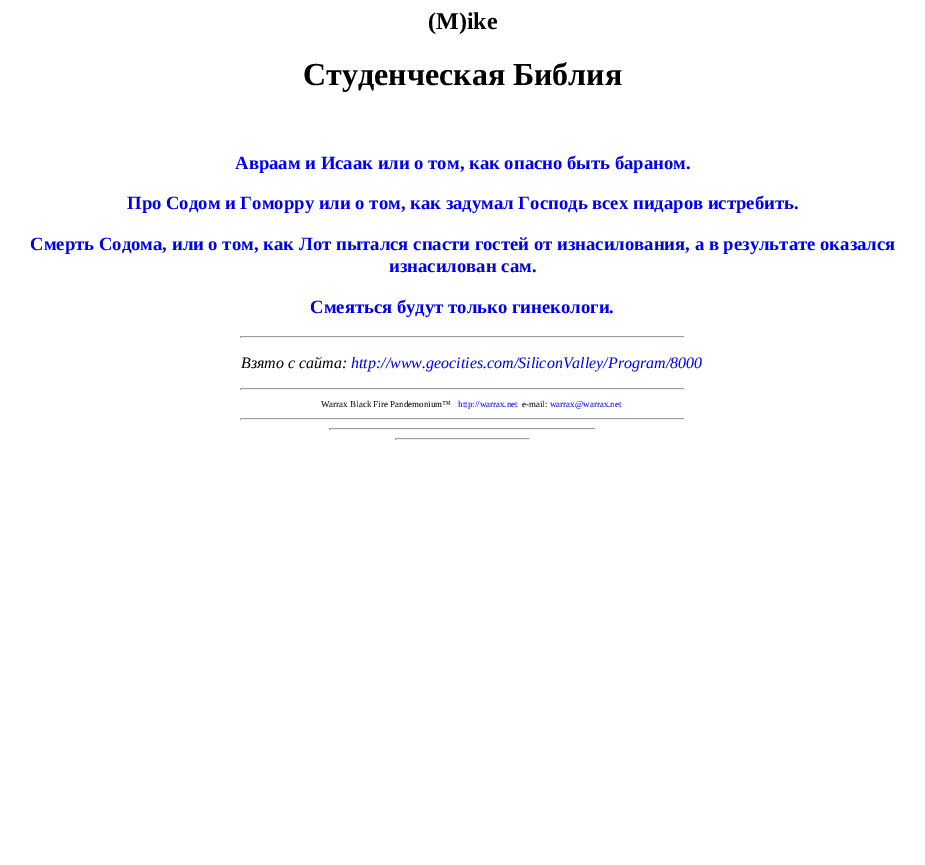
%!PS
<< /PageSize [925 865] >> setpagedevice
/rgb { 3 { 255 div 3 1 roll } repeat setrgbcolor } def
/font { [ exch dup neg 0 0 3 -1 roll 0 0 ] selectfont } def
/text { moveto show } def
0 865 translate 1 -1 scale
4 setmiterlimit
255 255 255 rgb
0 0 925 865 rectfill
159 159 159 rgb
240 336 445 1 rectfill
238 238 238 rgb
684 336 1 2 rectfill
240 337 445 1 rectfill
159 159 159 rgb
240 336 1 2 rectfill
240 388 445 1 rectfill
238 238 238 rgb
684 388 1 2 rectfill
240 389 445 1 rectfill
159 159 159 rgb
240 388 1 2 rectfill
240 418 445 1 rectfill
238 238 238 rgb
684 418 1 2 rectfill
240 419 445 1 rectfill
159 159 159 rgb
240 418 1 2 rectfill
329 428 267 1 rectfill
238 238 238 rgb
595 428 1 2 rectfill
329 429 267 1 rectfill
159 159 159 rgb
329 428 1 2 rectfill
395 438 135 1 rectfill
238 238 238 rgb
529 438 1 2 rectfill
395 439 135 1 rectfill
159 159 159 rgb
395 438 1 2 rectfill
/LiberationSerif-Bold 24 font
0 0 0 rgb
(\(M\)ike) 428 29 text
/LiberationSerif-Bold 32 font
(Студенческая Библия) 303 85 text
/LiberationSerif-Bold 18.7 font
0 0 238 rgb
(Авраам и Исаак или о том, как опасно быть бараном.) 235 169 text
(Про Содом и Гоморру или о том, как задумал Господь всех пидаров истребить.) 127 209 text
(Смерть Содома, или о том, как Лот пытался спасти гостей от изнасилования, а в результате оказался) 30 250 text
(изнасилован сам.) 389 272 text
(Смеяться будут только гинекологи.) 310 313 text
/LiberationSerif-Italic 16 font
0 0 0 rgb
(Взято с сайта:) 241 368 text
0 0 238 rgb
(http://www.geocities.com/SiliconValley/Program/8000) 351 368 text
/LiberationSerif-Regular 9 font
0 0 0 rgb
(Warrax Black Fire Pandemonium™) 321 407 text
0 0 238 rgb
(http://warrax.net) 458 407 text
0 0 0 rgb
(e-mail:) 522 407 text
0 0 238 rgb
(warrax@warrax.net) 550 407 text
showpage
